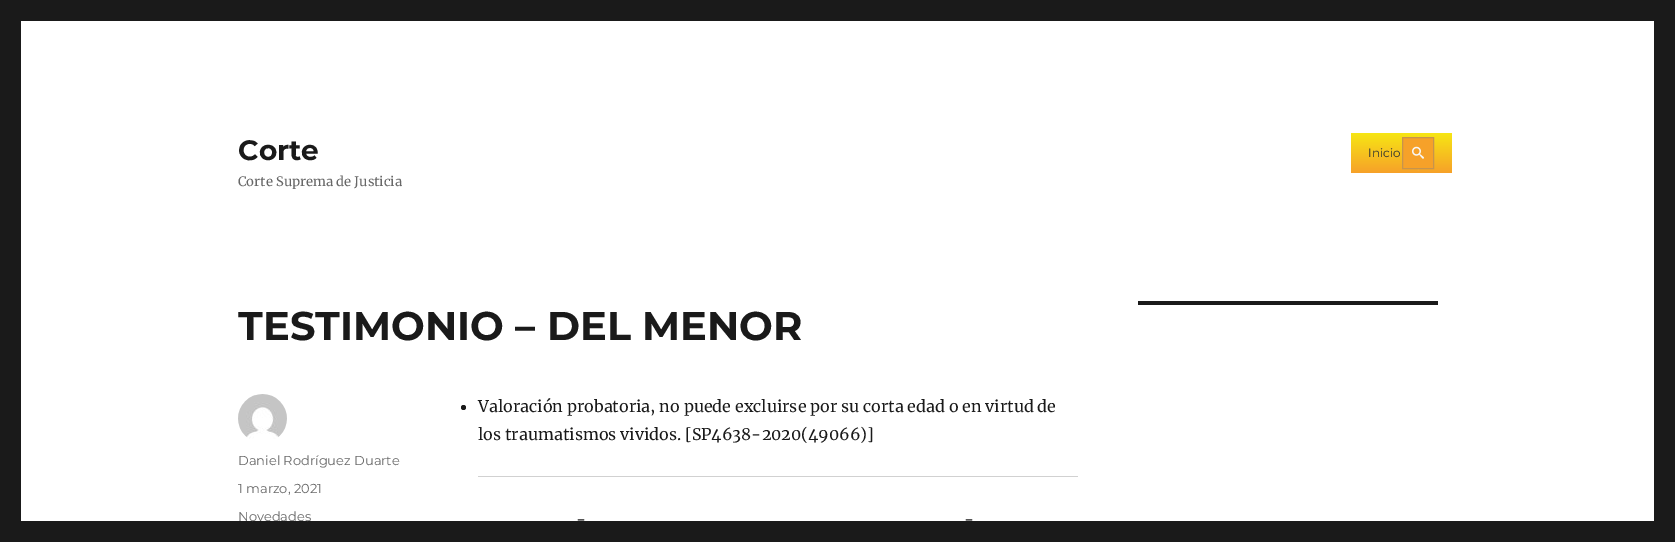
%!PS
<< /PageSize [1675 542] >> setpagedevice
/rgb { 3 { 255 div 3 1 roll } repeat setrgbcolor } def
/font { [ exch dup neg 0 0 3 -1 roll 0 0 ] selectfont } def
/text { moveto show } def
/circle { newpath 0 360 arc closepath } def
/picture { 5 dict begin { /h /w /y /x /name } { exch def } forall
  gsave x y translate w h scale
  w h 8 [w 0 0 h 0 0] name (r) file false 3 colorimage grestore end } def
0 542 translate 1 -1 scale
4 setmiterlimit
26 26 26 rgb
0 0 1675 542 rectfill
255 255 255 rgb
21 21 1633 500 rectfill
gsave 1351 133 moveto 101 0 rlineto 0 40 rlineto -101 0 rlineto closepath clip newpath
<< /ShadingType 2 /ColorSpace /DeviceRGB /Coords [1402 133 1402 173] /Extend [true true] /Function << /FunctionType 2 /Domain [0 1] /C0 [0.969 0.902 0.078] /C1 [0.965 0.631 0.161] /N 1 >> >> shfill grestore
(img_01.rgb) 1417 136 2 35 picture
246 161 41 rgb
1402.5 137.5 moveto 31 0 rlineto 0 31 rlineto -31 0 rlineto closepath gsave fill grestore
199 148 76 rgb
stroke
(img_02.rgb) 1412 146 12 13 picture
26 26 26 rgb
1138 301 300 4 rectfill
(img_03.rgb) 238 394 49 45 picture
463.5 407.5 2.5 circle fill
209 209 209 rgb
478 476 600 1 rectfill
/Montserrat-Thin 28 font
26 26 26 rgb
(Corte) 238 160 text
gsave
238 133 164 56 rectclip
/Merriweather-Regular 13 font
104 104 104 rgb
(Corte Suprema de Justicia) 238 186 text
grestore
/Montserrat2-Thin 12 font
51 51 51 rgb
(Inicio) 1368 157 text
/Montserrat-Thin 40 font
26 26 26 rgb
(TESTIMONIO – DEL MENOR) 238 340 text
/Montserrat2-Thin 13 font
104 104 104 rgb
(Daniel Rodríguez Duarte) 238 465 text
(1 marzo, 2021) 238 493 text
(Novedades) 238 521 text
/Merriweather-Regular 16 font
26 26 26 rgb
(Valoración probatoria, no puede excluirse por su corta edad o en virtud de) 478 412 text
(los traumatismos vividos. [SP4638-2020\(49066\)]) 478 440 text
(-) 576 525 text
(-) 964 525 text
267 521 34 1 rectfill
showpage
